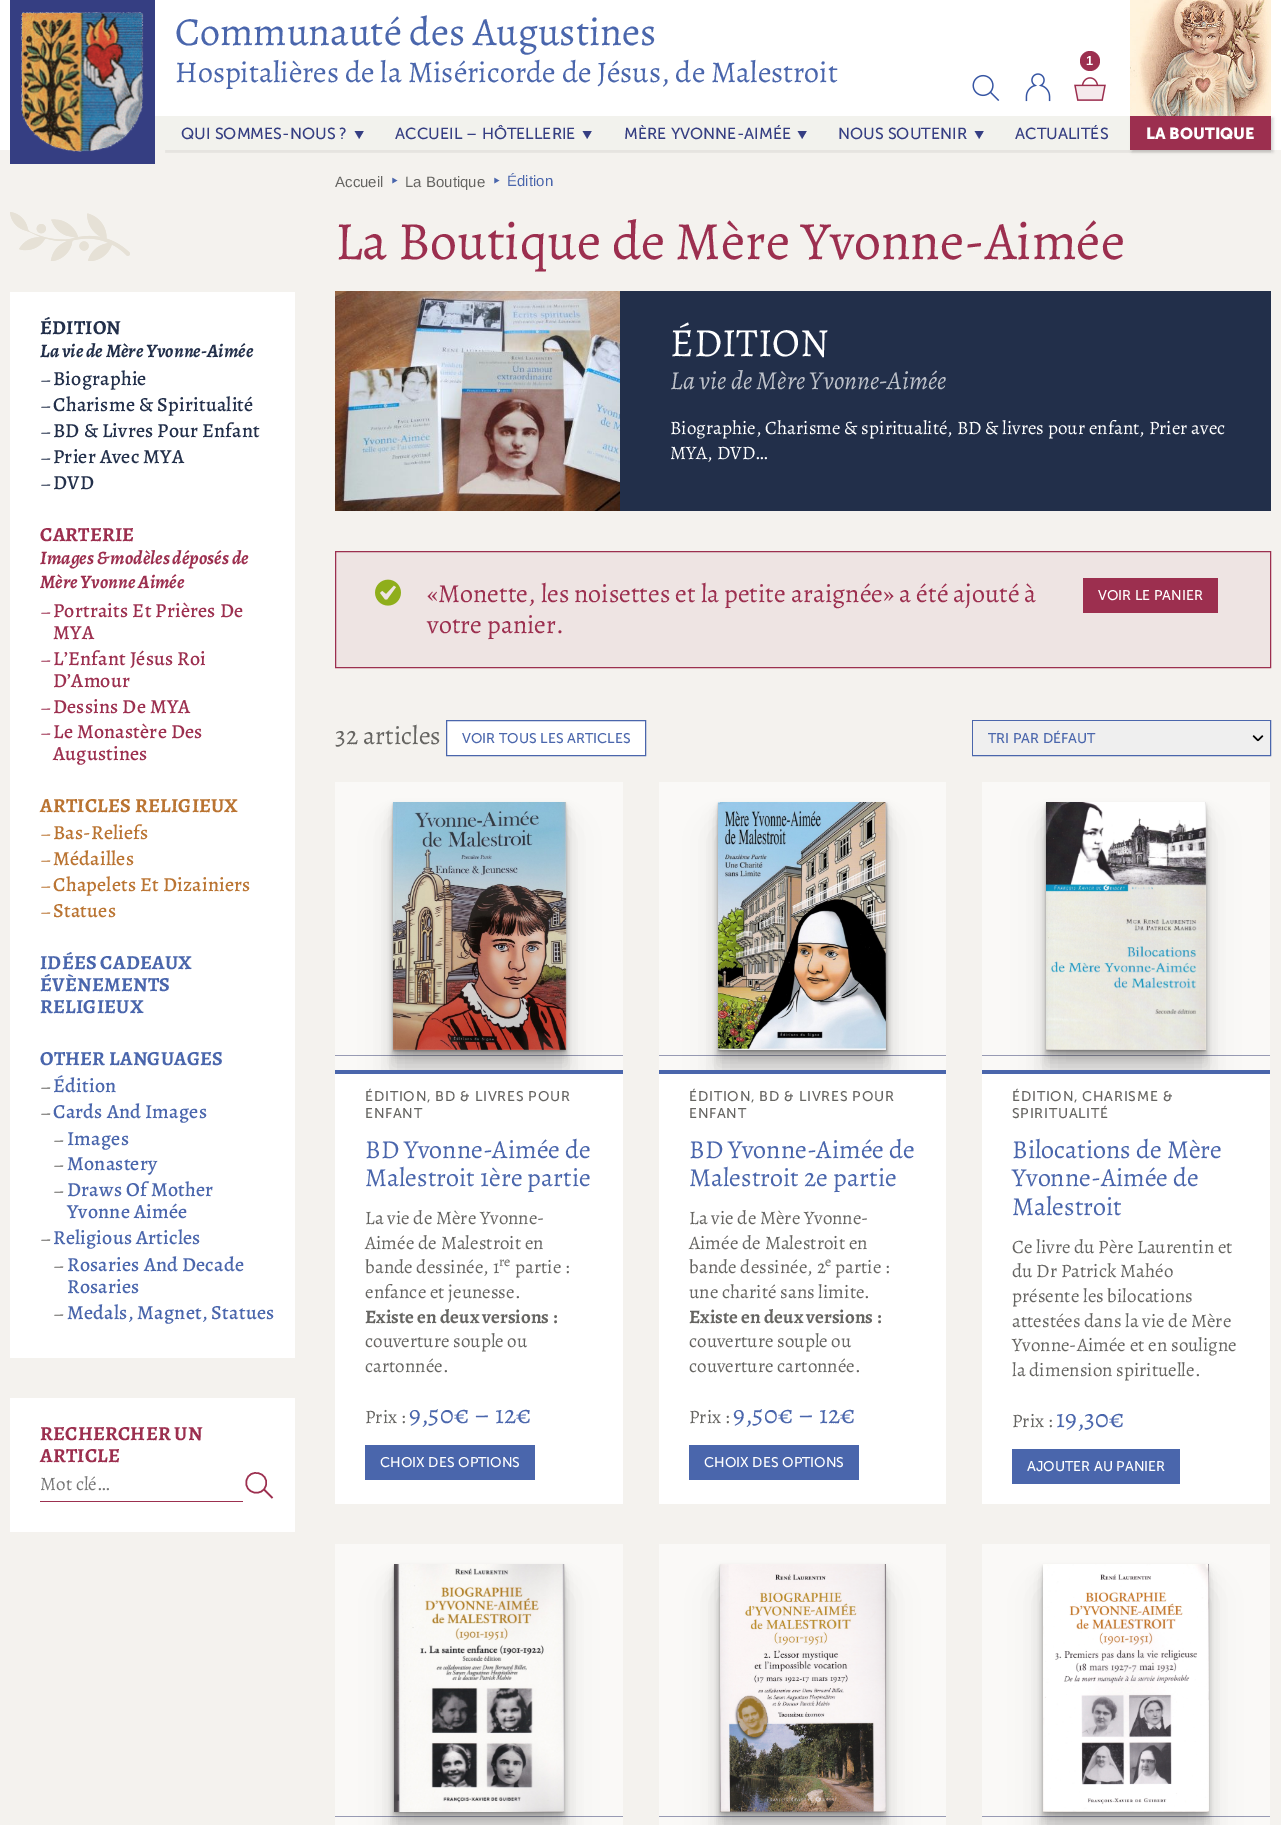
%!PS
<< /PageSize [1281 1825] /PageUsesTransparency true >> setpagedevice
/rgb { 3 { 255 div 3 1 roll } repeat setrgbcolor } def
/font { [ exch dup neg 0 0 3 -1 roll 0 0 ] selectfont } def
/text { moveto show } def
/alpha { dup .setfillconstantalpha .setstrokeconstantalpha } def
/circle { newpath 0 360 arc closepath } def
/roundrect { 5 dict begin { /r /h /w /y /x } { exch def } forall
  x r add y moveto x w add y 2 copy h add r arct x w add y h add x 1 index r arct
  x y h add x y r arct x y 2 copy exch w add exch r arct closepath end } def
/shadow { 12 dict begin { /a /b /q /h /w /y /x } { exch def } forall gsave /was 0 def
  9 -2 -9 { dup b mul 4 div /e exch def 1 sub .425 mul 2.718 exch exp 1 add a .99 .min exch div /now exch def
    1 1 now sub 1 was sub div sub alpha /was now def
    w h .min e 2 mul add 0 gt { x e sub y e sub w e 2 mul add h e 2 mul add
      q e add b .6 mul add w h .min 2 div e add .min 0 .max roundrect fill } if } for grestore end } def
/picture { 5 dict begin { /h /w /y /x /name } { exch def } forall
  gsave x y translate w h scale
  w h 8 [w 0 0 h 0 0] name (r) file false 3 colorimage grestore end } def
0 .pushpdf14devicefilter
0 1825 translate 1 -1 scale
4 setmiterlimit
244 242 238 rgb
0 0 1281 1825 rectfill
255 255 255 rgb
0 0 1281 150 rectfill
53 62 130 rgb
10 0 145 164 rectfill
(img_01.rgb) 21 12 123 140 picture
242 242 237 rgb
155 116 975 34 rectfill
156 47 79 rgb
1090 61 10 circle fill
(img_02.rgb) 1074 77 32 24 picture
(img_03.rgb) 1025 73 26 29 picture
(img_04.rgb) 972 74 28 27 picture
gsave
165 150 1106 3 rectclip
0 0 0 rgb
165 119 1106 34 0 0.5 0.06 shadow
grestore
0 0 0 rgb
1132 118 141 34 0 1.5 0.16 shadow
156 47 79 rgb
1130 116 141 34 rectfill
(img_05.rgb) 1130 0 141 116 picture
(img_06.rgb) 10 212 120 49 picture
255 255 255 rgb
10 292 285 1066 rectfill
10 1398 285 134 rectfill
156 47 79 rgb
40 1501 203 1 rectfill
1.5 setlinewidth
246.5 1480.5 moveto 3 -13 22.5 -8 19.5 4.5 rcurveto -3 13 -22.5 8.5 -19.5 -4.5 rcurveto closepath 272.5 1498 moveto -8.5 -8.5 rlineto stroke
34 47 74 rgb
620 291 651 220 rectfill
(img_07.rgb) 335 291 285 220 picture
238 228 227 rgb
335.5 551.5 moveto 935 0 rlineto 0 116 rlineto -935 0 rlineto closepath gsave fill grestore
156 47 79 rgb
1 setlinewidth
stroke
(img_08.rgb) 375 579 26 27 picture
1083 578 135 35 rectfill
255 255 255 rgb
446.5 720.5 moveto 199 0 rlineto 0 35 rlineto -199 0 rlineto closepath gsave fill grestore
74 102 172 rgb
stroke
972.5 720.5 298 35 rectstroke
239 239 239 rgb
973 721 297 34 rectfill
(img_09.rgb) 1252 735 12 7 picture
255 255 255 rgb
335 1074 288 430 rectfill
250 249 247 rgb
335 782 288 288 rectfill
152 155 180 rgb
335 1055 288 1 rectfill
74 102 172 rgb
335 1070 288 4 rectfill
gsave
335 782 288 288 rectclip
0 0 0 rgb
393 834 173 248 0 16 0.11 shadow
393 818 173 248 0 8 0.11 shadow
grestore
0 0 0 rgb
393 810 173 248 0 4 0.11 shadow
393 806 173 248 0 2 0.11 shadow
393 804 173 248 0 1 0.11 shadow
393 803 173 248 0 0.5 0.11 shadow
(img_10.rgb) 393 802 174 248 picture
74 102 172 rgb
365 1445 170 35 rectfill
255 255 255 rgb
659 1074 287 430 rectfill
250 249 247 rgb
659 782 287 288 rectfill
152 155 180 rgb
659 1055 287 1 rectfill
74 102 172 rgb
659 1070 287 4 rectfill
gsave
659 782 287 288 rectclip
0 0 0 rgb
718 834 169 248 0 16 0.11 shadow
718 818 169 248 0 8 0.11 shadow
grestore
0 0 0 rgb
718 810 169 248 0 4 0.11 shadow
718 806 169 248 0 2 0.11 shadow
718 804 169 248 0 1 0.11 shadow
718 803 169 248 0 0.5 0.11 shadow
(img_11.rgb) 718 802 168 248 picture
74 102 172 rgb
689 1445 170 35 rectfill
255 255 255 rgb
982 1074 288 430 rectfill
250 249 247 rgb
982 782 288 288 rectfill
152 155 180 rgb
982 1055 288 1 rectfill
74 102 172 rgb
982 1070 288 4 rectfill
gsave
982 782 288 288 rectclip
0 0 0 rgb
1046 834 160 248 0 16 0.11 shadow
1046 818 160 248 0 8 0.11 shadow
grestore
0 0 0 rgb
1046 810 160 248 0 4 0.11 shadow
1046 806 160 248 0 2 0.11 shadow
1046 804 160 248 0 1 0.11 shadow
1046 803 160 248 0 0.5 0.11 shadow
(img_12.rgb) 1046 802 161 248 picture
74 102 172 rgb
1012 1449 168 35 rectfill
250 249 247 rgb
335 1544 288 281 rectfill
152 155 180 rgb
335 1816 288 1 rectfill
0 0 0 rgb
394 1596 170 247 0 16 0.11 shadow
394 1580 170 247 0 8 0.11 shadow
394 1572 170 247 0 4 0.11 shadow
394 1568 170 247 0 2 0.11 shadow
394 1566 170 247 0 1 0.11 shadow
394 1565 170 247 0 0.5 0.11 shadow
(img_13.rgb) 394 1564 171 248 picture
250 249 247 rgb
659 1544 287 281 rectfill
152 155 180 rgb
659 1816 287 1 rectfill
0 0 0 rgb
720 1596 165 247 0 16 0.11 shadow
720 1580 165 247 0 8 0.11 shadow
720 1572 165 247 0 4 0.11 shadow
720 1568 165 247 0 2 0.11 shadow
720 1566 165 247 0 1 0.11 shadow
720 1565 165 247 0 0.5 0.11 shadow
(img_14.rgb) 720 1564 166 248 picture
250 249 247 rgb
982 1544 288 281 rectfill
152 155 180 rgb
982 1816 288 1 rectfill
0 0 0 rgb
1043 1596 165 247 0 16 0.11 shadow
1043 1580 165 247 0 8 0.11 shadow
1043 1572 165 247 0 4 0.11 shadow
1043 1568 165 247 0 2 0.11 shadow
1043 1566 165 247 0 1 0.11 shadow
(img_15.rgb) 1043 1564 166 248 picture
/Alegreya-Regular 40 font
74 102 172 rgb
(Communauté des Augustines) 175 45 text
/Alegreya-Regular 30 font
(Hospitalières de la Miséricorde de Jésus, de Malestroit) 175 82 text
/LiberationSans-Bold 13 font
255 255 255 rgb
(1) 1086 65 text
/MuseoSans-Regular 16 font
53 62 130 rgb
(QUI SOMMES-NOUS ?) 181 139 text
/NotoSans-Medium 30 font
gsave 348 129 translate 90 rotate 0 0 moveto (‣) show grestore
/MuseoSans-Regular 16 font
(ACCUEIL – HÔTELLERIE) 395 139 text
/NotoSans-Medium 30 font
gsave 576 129 translate 90 rotate 0 0 moveto (‣) show grestore
/MuseoSans-Regular 16 font
(MÈRE YVONNE-AIMÉE) 624 139 text
/NotoSans-Medium 30 font
gsave 791 129 translate 90 rotate 0 0 moveto (‣) show grestore
/MuseoSans-Regular 16 font
(NOUS SOUTENIR) 838 139 text
/NotoSans-Medium 30 font
gsave 968 129 translate 90 rotate 0 0 moveto (‣) show grestore
/MuseoSans-Regular 16 font
(ACTUALITÉS) 1015 139 text
/MuseoSans-Bold 16 font
255 255 255 rgb
(LA BOUTIQUE) 1146 139 text
/LiberationSans-Regular 15 font
102 101 98 rgb
(Accueil) 335 187 text
/NotoSans-Regular 20 font
74 102 172 rgb
(‣) 391 188 text
/LiberationSans-Regular 15 font
102 101 98 rgb
(La Boutique) 405 187 text
/NotoSans-Regular 20 font
74 102 172 rgb
(‣) 493 188 text
/LiberationSans-Regular 15 font
(Édition) 507 186 text
/Alegreya-Bold 20 font
34 47 74 rgb
40 334 moveto 0.2 0 (ÉDITION) ashow
/Alegreya-BoldItalic 19 font
(La vie de Mère Yvonne-Aimée) 40 357 text
/Alegreya-Regular 19 font
(–) 40 386 text
/Alegreya-Medium 20 font
53 385 moveto 0.2 0 (Biographie) ashow
/Alegreya-Regular 19 font
(–) 40 412 text
/Alegreya-Medium 20 font
53 411 moveto 0.2 0 (Charisme & Spiritualité) ashow
/Alegreya-Regular 19 font
(–) 40 438 text
/Alegreya-Medium 20 font
53 437 moveto 0.2 0 (BD & Livres Pour Enfant) ashow
/Alegreya-Regular 19 font
(–) 40 464 text
/Alegreya-Medium 20 font
53 463 moveto 0.2 0 (Prier Avec MYA) ashow
/Alegreya-Regular 19 font
(–) 40 490 text
/Alegreya-Medium 20 font
53 489 moveto 0.2 0 (DVD) ashow
/Alegreya-Bold 20 font
156 47 79 rgb
40 541 moveto 0.2 0 (CARTERIE) ashow
/Alegreya-BoldItalic 19 font
(Images & modèles déposés de) 40 564 text
(Mère Yvonne Aimée) 40 588 text
/Alegreya-Regular 19 font
(–) 40 618 text
/Alegreya-Medium 20 font
53 617 moveto 0.2 0 (Portraits Et Prières De) ashow
53 639 moveto 0.2 0 (MYA) ashow
/Alegreya-Regular 19 font
(–) 40 666 text
/Alegreya-Medium 20 font
53 665 moveto 0.2 0 (L’Enfant Jésus Roi) ashow
53 687 moveto 0.2 0 (D’Amour) ashow
/Alegreya-Regular 19 font
(–) 40 714 text
/Alegreya-Medium 20 font
53 713 moveto 0.2 0 (Dessins De MYA) ashow
/Alegreya-Regular 19 font
(–) 40 739 text
/Alegreya-Medium 20 font
53 738 moveto 0.2 0 (Le Monastère Des) ashow
53 760 moveto 0.2 0 (Augustines) ashow
/Alegreya-Bold 20 font
186 116 50 rgb
40 812 moveto 0.2 0 (ARTICLES RELIGIEUX) ashow
/Alegreya-Regular 19 font
(–) 40 840 text
/Alegreya-Medium 20 font
53 839 moveto 0.2 0 (Bas-Reliefs) ashow
/Alegreya-Regular 19 font
(–) 40 866 text
/Alegreya-Medium 20 font
53 865 moveto 0.2 0 (Médailles) ashow
/Alegreya-Regular 19 font
(–) 40 892 text
/Alegreya-Medium 20 font
53 891 moveto 0.2 0 (Chapelets Et Dizainiers) ashow
/Alegreya-Regular 19 font
(–) 40 918 text
/Alegreya-Medium 20 font
53 917 moveto 0.2 0 (Statues) ashow
/Alegreya-Bold 20 font
74 102 172 rgb
40 969 moveto 0.2 0 (IDÉES CADEAUX) ashow
40 991 moveto 0.2 0 (ÉVÈNEMENTS) ashow
40 1013 moveto 0.2 0 (RELIGIEUX) ashow
40 1065 moveto 0.2 0 (OTHER LANGUAGES) ashow
/Alegreya-Regular 19 font
102 101 98 rgb
(–) 40 1093 text
/Alegreya-Medium 20 font
74 102 172 rgb
53 1092 moveto 0.2 0 (Édition) ashow
/Alegreya-Regular 19 font
102 101 98 rgb
(–) 40 1119 text
/Alegreya-Medium 20 font
74 102 172 rgb
53 1118 moveto 0.2 0 (Cards And Images) ashow
/Alegreya-Regular 19 font
102 101 98 rgb
(–) 53 1146 text
/Alegreya-Medium 20 font
74 102 172 rgb
67 1145 moveto 0.2 0 (Images) ashow
/Alegreya-Regular 19 font
102 101 98 rgb
(–) 53 1171 text
/Alegreya-Medium 20 font
74 102 172 rgb
67 1170 moveto 0.2 0 (Monastery) ashow
/Alegreya-Regular 19 font
102 101 98 rgb
(–) 53 1197 text
/Alegreya-Medium 20 font
74 102 172 rgb
67 1196 moveto 0.2 0 (Draws Of Mother) ashow
67 1218 moveto 0.2 0 (Yvonne Aimée) ashow
/Alegreya-Regular 19 font
102 101 98 rgb
(–) 40 1245 text
/Alegreya-Medium 20 font
74 102 172 rgb
53 1244 moveto 0.2 0 (Religious Articles) ashow
/Alegreya-Regular 19 font
102 101 98 rgb
(–) 53 1272 text
/Alegreya-Medium 20 font
74 102 172 rgb
67 1271 moveto 0.2 0 (Rosaries And Decade) ashow
67 1293 moveto 0.2 0 (Rosaries) ashow
/Alegreya-Regular 19 font
102 101 98 rgb
(–) 53 1320 text
/Alegreya-Medium 20 font
74 102 172 rgb
67 1319 moveto 0.2 0 (Medals, Magnet, Statues) ashow
/Alegreya-Bold 20 font
156 47 79 rgb
40 1440 moveto 0.2 0 (RECHERCHER UN) ashow
40 1462 moveto 0.2 0 (ARTICLE) ashow
/Alegreya-Regular 19 font
119 119 119 rgb
(Mot clé…) 40 1490 text
/Alegreya-Regular 54 font
156 47 79 rgb
(La Boutique de Mère Yvonne-Aimée) 335 259 text
/Alegreya-Regular 40 font
255 255 255 rgb
(ÉDITION) 670 356 text
/Alegreya-Italic 26 font
189 193 201 rgb
(La vie de Mère Yvonne-Aimée) 670 389 text
/Alegreya-Regular 19 font
255 255 255 rgb
(Biographie, Charisme & spiritualité, BD & livres pour enfant, Prier avec) 670 434 text
(MYA, DVD…) 670 459 text
/Alegreya-Regular 26 font
156 47 79 rgb
(«Monette, les noisettes et la petite araignée» a été ajouté à) 427 602 text
/MuseoSans-Regular 14 font
255 255 255 rgb
(VOIR LE PANIER) 1098 600 text
/Alegreya-Regular 26 font
156 47 79 rgb
(votre panier.) 427 633 text
102 101 98 rgb
(32 articles) 335 744 text
/MuseoSans-Regular 14 font
74 102 172 rgb
(VOIR TOUS LES ARTICLES) 462 743 text
(TRI PAR DÉFAUT) 988 743 text
102 101 98 rgb
365 1101 moveto 0.7 0 (ÉDITION, BD & LIVRES POUR) ashow
365 1118 moveto 0.7 0 (ENFANT) ashow
/Alegreya-Regular 26 font
74 102 172 rgb
(BD Yvonne-Aimée de) 365 1158 text
(Malestroit 1ère partie) 365 1186 text
/Alegreya-Regular 19 font
102 101 98 rgb
(La vie de Mère Yvonne-) 365 1224 text
(Aimée de Malestroit en) 365 1249 text
(bande dessinée, 1) 365 1273 text
/Alegreya-Regular 14 font
(re) 499 1266 text
/Alegreya-Regular 19 font
(partie :) 515 1273 text
(enfance et jeunesse.) 365 1298 text
/Alegreya-Bold 19 font
(Existe en deux versions :) 365 1323 text
/Alegreya-Regular 19 font
(couverture souple ou) 365 1347 text
(cartonnée.) 365 1372 text
(Prix :) 365 1423 text
/Alegreya-Regular 26 font
74 102 172 rgb
(9,50€ – 12€) 409 1423 text
/MuseoSans-Regular 14 font
255 255 255 rgb
(CHOIX DES OPTIONS) 380 1467 text
102 101 98 rgb
689 1101 moveto 0.7 0 (ÉDITION, BD & LIVRES POUR) ashow
689 1118 moveto 0.7 0 (ENFANT) ashow
/Alegreya-Regular 26 font
74 102 172 rgb
(BD Yvonne-Aimée de) 689 1158 text
(Malestroit 2e partie) 689 1186 text
/Alegreya-Regular 19 font
102 101 98 rgb
(La vie de Mère Yvonne-) 689 1224 text
(Aimée de Malestroit en) 689 1249 text
(bande dessinée, 2) 689 1273 text
/Alegreya-Regular 14 font
(e) 825 1266 text
/Alegreya-Regular 19 font
(partie :) 835 1273 text
(une charité sans limite.) 689 1298 text
/Alegreya-Bold 19 font
(Existe en deux versions :) 689 1323 text
/Alegreya-Regular 19 font
(couverture souple ou) 689 1347 text
(couverture cartonnée.) 689 1372 text
(Prix :) 689 1423 text
/Alegreya-Regular 26 font
74 102 172 rgb
(9,50€ – 12€) 733 1423 text
/MuseoSans-Regular 14 font
255 255 255 rgb
(CHOIX DES OPTIONS) 704 1467 text
102 101 98 rgb
1012 1101 moveto 0.7 0 (ÉDITION, CHARISME &) ashow
1012 1118 moveto 0.7 0 (SPIRITUALITÉ) ashow
/Alegreya-Regular 26 font
74 102 172 rgb
(Bilocations de Mère) 1012 1158 text
(Yvonne-Aimée de) 1012 1186 text
(Malestroit) 1012 1215 text
/Alegreya-Regular 19 font
102 101 98 rgb
(Ce livre du Père Laurentin et) 1012 1253 text
(du Dr Patrick Mahéo) 1012 1277 text
(présente les bilocations) 1012 1302 text
(attestées dans la vie de Mère) 1012 1327 text
(Yvonne-Aimée et en souligne) 1012 1351 text
(la dimension spirituelle.) 1012 1376 text
(Prix :) 1012 1427 text
/Alegreya-Regular 26 font
74 102 172 rgb
(19,30€) 1056 1427 text
/MuseoSans-Regular 14 font
255 255 255 rgb
(AJOUTER AU PANIER) 1027 1471 text
.poppdf14devicefilter showpage
